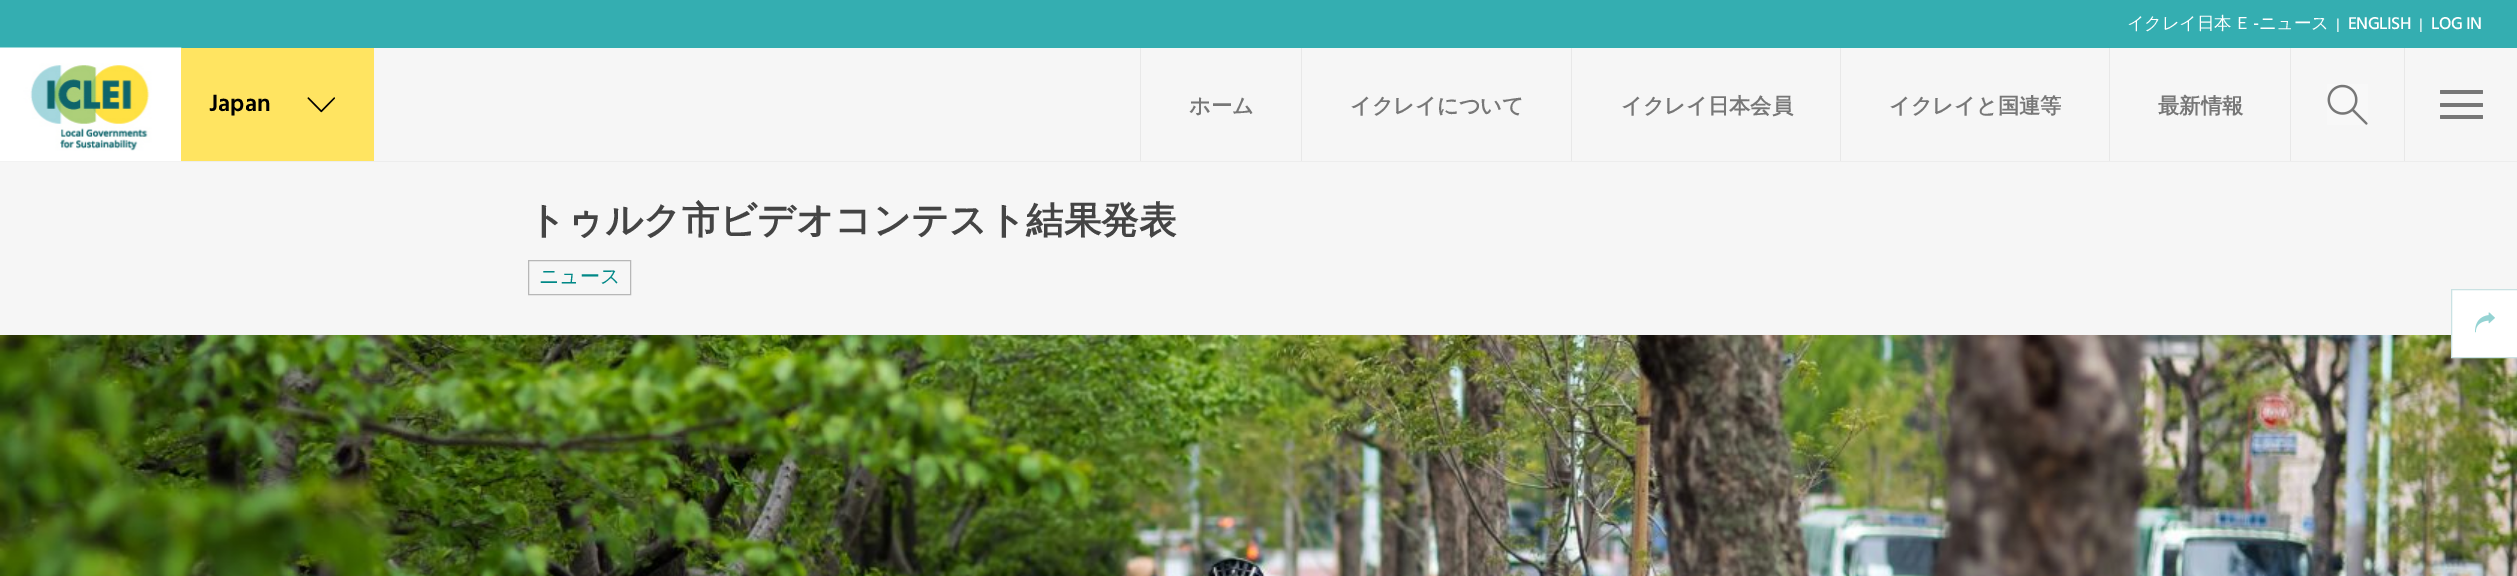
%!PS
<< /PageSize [2517 576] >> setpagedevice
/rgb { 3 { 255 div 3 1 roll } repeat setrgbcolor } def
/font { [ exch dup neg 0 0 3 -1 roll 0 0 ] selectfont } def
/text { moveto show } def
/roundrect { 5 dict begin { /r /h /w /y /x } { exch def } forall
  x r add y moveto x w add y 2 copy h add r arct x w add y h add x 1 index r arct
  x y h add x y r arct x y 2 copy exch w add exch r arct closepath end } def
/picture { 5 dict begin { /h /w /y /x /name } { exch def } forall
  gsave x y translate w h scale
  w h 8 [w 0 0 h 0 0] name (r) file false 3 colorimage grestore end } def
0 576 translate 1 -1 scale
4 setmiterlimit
246 246 246 rgb
0 0 2517 576 rectfill
52 174 177 rgb
0 0 2517 48 rectfill
237 237 237 rgb
0 161 2517 1 rectfill
(img_01.rgb) 0 47 182 115 picture
255 228 97 rgb
181 48 193 113 rectfill
(img_02.rgb) 307 97 28 16 picture
232 232 232 rgb
1140 48 1 113 rectfill
1301 48 1 113 rectfill
1571 48 1 113 rectfill
1840 48 1 113 rectfill
2109 48 1 113 rectfill
2290 48 1 113 rectfill
(img_03.rgb) 2327 84 41 41 picture
2404 48 1 113 rectfill
119 119 119 rgb
2440 90 43 4 1 roundrect fill
2440 103 43 4 1 roundrect fill
2440 115 43 4 1 roundrect fill
183 183 183 rgb
528.5 260.5 102 34 rectstroke
(img_04.rgb) 0 335 2517 241 picture
255 255 255 rgb
2451.5 289.5 moveto 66 0 rlineto 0 68 rlineto -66 0 rlineto closepath gsave fill grestore
202 226 227 rgb
stroke
(img_05.rgb) 2475 312 20 21 picture
/WenQuanYiZenHei-Medium 17.5 font
255 255 255 rgb
2127 29 moveto -1 0 32 -0.5 0 (イクレイ日本 Ｅ) awidthshow
/Hind-Medium 17.5 font
2253 29 moveto -0.5 0 (-) ashow
/WenQuanYiZenHei-Medium 17.5 font
2259 29 moveto -0.5 0 (ニュース) ashow
/Hind-Medium 15 font
2336 29 moveto -0.5 0 (|) ashow
/Hind-Medium 17.5 font
2348 29 moveto -0.5 0 (ENGLISH) ashow
/Hind-Medium 15 font
2419 29 moveto -0.5 0 (|) ashow
/Hind-Medium 17.5 font
2431 29 moveto -0.5 0 (LOG IN) ashow
/Hind-SemiBold 24 font
0 0 0 rgb
(Japan) 209 111 text
/WenQuanYiZenHei-Bold 21.25 font
119 119 119 rgb
(ホーム) 1189 113 text
(イクレイについて) 1350 113 text
(イクレイ日本会員) 1621 113 text
(イクレイと国連等) 1889 113 text
(最新情報) 2158 113 text
/WenQuanYiZenHei-Bold 37.5 font
68 68 68 rgb
(トゥルク市ビデオコンテスト結果発表) 528 233 text
/WenQuanYiZenHei-Medium 20 font
0 136 135 rgb
(ニュース) 539 283 text
showpage
